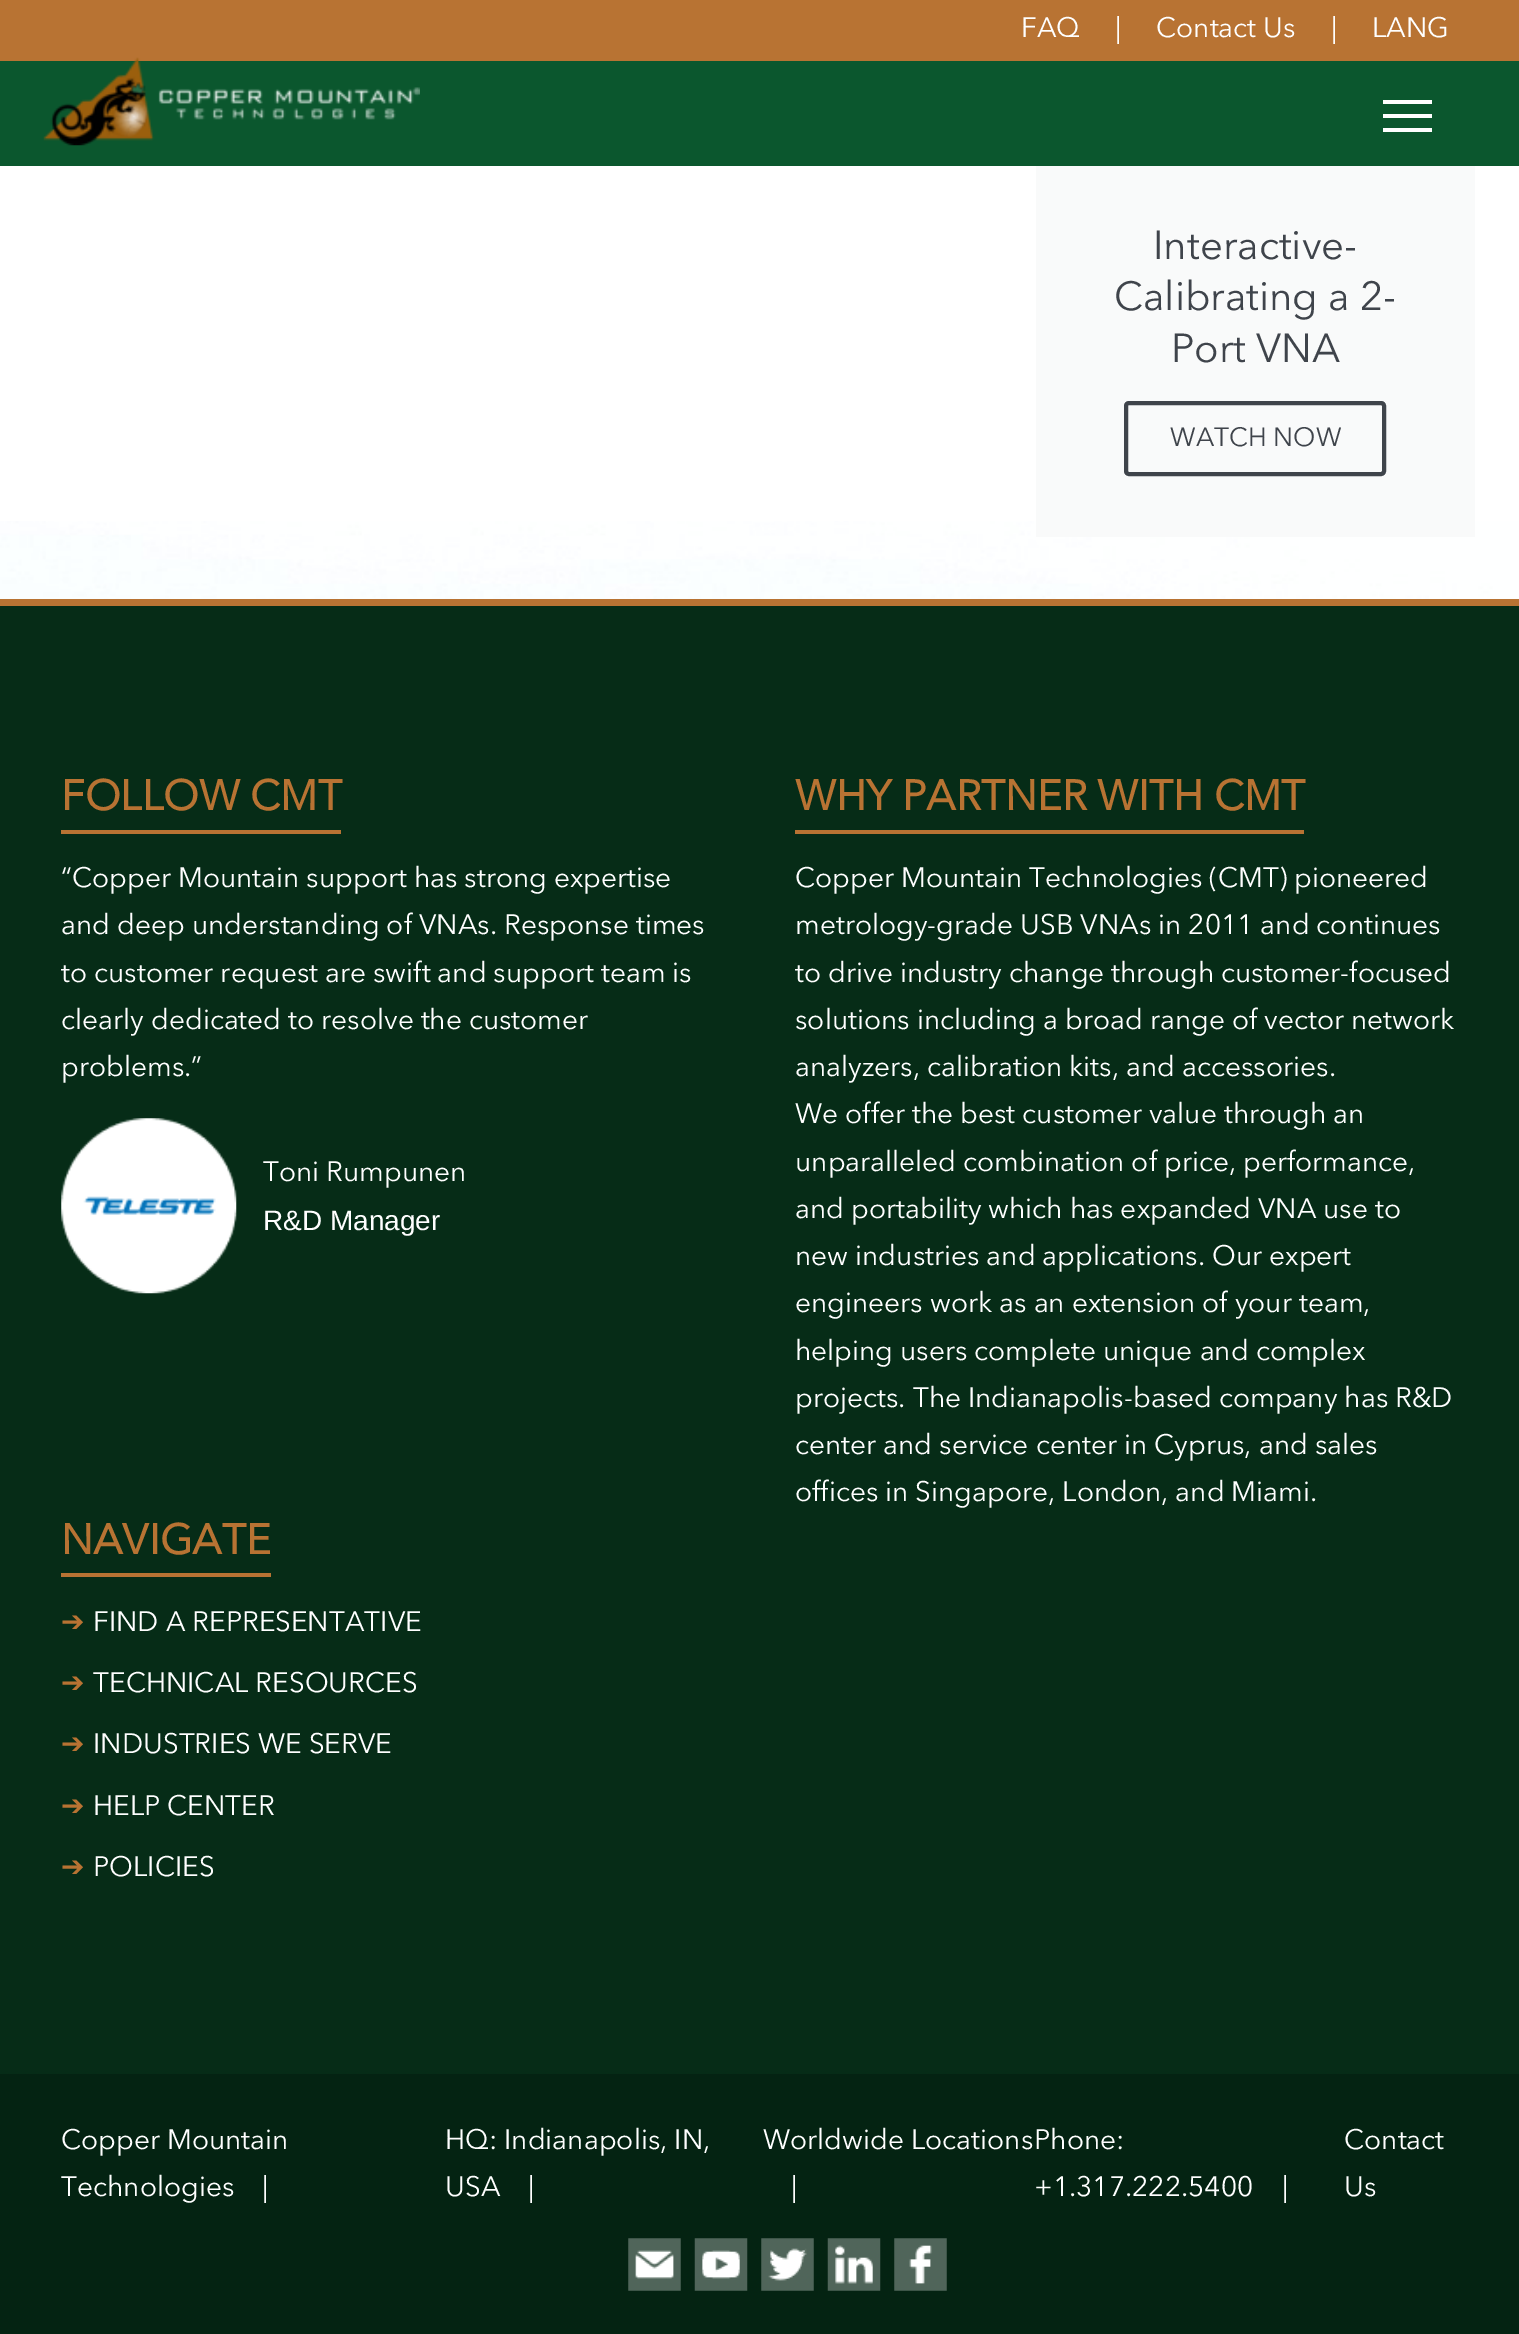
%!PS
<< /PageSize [1519 2334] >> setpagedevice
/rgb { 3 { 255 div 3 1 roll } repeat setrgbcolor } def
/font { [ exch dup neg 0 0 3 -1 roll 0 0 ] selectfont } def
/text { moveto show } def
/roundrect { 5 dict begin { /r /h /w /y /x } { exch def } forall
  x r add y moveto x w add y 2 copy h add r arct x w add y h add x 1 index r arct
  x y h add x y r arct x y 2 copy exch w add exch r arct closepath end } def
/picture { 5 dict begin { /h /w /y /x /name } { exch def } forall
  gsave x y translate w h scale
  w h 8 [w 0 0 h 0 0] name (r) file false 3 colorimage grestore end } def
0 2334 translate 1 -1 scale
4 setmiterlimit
255 255 255 rgb
0 0 1519 2334 rectfill
11 87 46 rgb
0 61 1519 105 rectfill
184 115 51 rgb
0 0 1519 61 rectfill
(img_01.rgb) 43 57 377 89 picture
255 255 255 rgb
1383 100 49 4 rectfill
1383 114 49 4 rectfill
1383 128 49 4 rectfill
(img_02.rgb) 0 521 1519 78 picture
249 250 250 rgb
1036 166 439 371 rectfill
63 68 75 rgb
4 setlinewidth
1126 403 258 71 3 roundrect stroke
6 44 23 rgb
0 606 1519 1468 rectfill
184 115 51 rgb
0 599 1519 7 rectfill
61 830 280 4 rectfill
(img_03.rgb) 61 1118 176 176 picture
795 830 509 4 rectfill
61 1573 210 4 rectfill
4 35 18 rgb
0 2074 1519 260 rectfill
(img_04.rgb) 628 2238 53 53 picture
(img_05.rgb) 694 2238 54 53 picture
(img_06.rgb) 761 2238 53 53 picture
(img_07.rgb) 827 2238 54 53 picture
(img_08.rgb) 894 2238 53 53 picture
/AvenirNext-Regular 28 font
255 255 255 rgb
(FAQ) 1021 37 text
(|) 1115 37 text
(Contact Us) 1156 37 text
(|) 1331 37 text
(LANG) 1372 37 text
/AvenirNext-Regular 40.25 font
63 68 75 rgb
(Interactive-) 1153 259 text
(Calibrating a 2-) 1114 310 text
(Port VNA) 1171 362 text
/AvenirNext-Regular 26.25 font
(WATCH NOW) 1170 446 text
/AvenirNext-Bold 42 font
184 115 51 rgb
(FOLLOW CMT) 61 810 text
/AvenirNext-Regular 28 font
255 255 255 rgb
(“Copper Mountain support has strong expertise) 61 887 text
(and deep understanding of VNAs. Response times) 61 934 text
(to customer request are swift and support team is) 61 982 text
(clearly dedicated to resolve the customer) 61 1029 text
(problems.”) 61 1076 text
(Toni Rumpunen) 263 1181 text
/LiberationSans-Regular 28 font
(R&D Manager) 263 1230 text
/AvenirNext-Bold 42 font
184 115 51 rgb
(WHY PARTNER WITH CMT) 795 810 text
/AvenirNext-Regular 28 font
255 255 255 rgb
(Copper Mountain Technologies \(CMT\) pioneered) 795 887 text
(metrology-grade USB VNAs in 2011 and continues) 795 934 text
(to drive industry change through customer-focused) 795 982 text
(solutions including a broad range of vector network) 795 1029 text
(analyzers, calibration kits, and accessories.) 795 1076 text
(We offer the best customer value through an) 795 1123 text
(unparalleled combination of price, performance,) 795 1171 text
(and portability which has expanded VNA use to) 795 1218 text
(new industries and applications. Our expert) 795 1265 text
(engineers work as an extension of your team,) 795 1312 text
(helping users complete unique and complex) 795 1360 text
(projects. The Indianapolis-based company has R&D) 795 1407 text
(center and service center in Cyprus, and sales) 795 1454 text
(offices in Singapore, London, and Miami.) 795 1501 text
/AvenirNext-Bold 42 font
184 115 51 rgb
(NAVIGATE) 61 1554 text
/DejaVuSans-Regular 28 font
(➔) 61 1631 text
/AvenirNext-Regular 28 font
255 255 255 rgb
(FIND A REPRESENTATIVE) 93 1631 text
/DejaVuSans-Regular 28 font
184 115 51 rgb
(➔) 61 1692 text
/AvenirNext-Regular 28 font
255 255 255 rgb
(TECHNICAL RESOURCES) 93 1692 text
/DejaVuSans-Regular 28 font
184 115 51 rgb
(➔) 61 1753 text
/AvenirNext-Regular 28 font
255 255 255 rgb
(INDUSTRIES WE SERVE) 93 1753 text
/DejaVuSans-Regular 28 font
184 115 51 rgb
(➔) 61 1815 text
/AvenirNext-Regular 28 font
255 255 255 rgb
(HELP CENTER) 93 1815 text
/DejaVuSans-Regular 28 font
184 115 51 rgb
(➔) 61 1876 text
/AvenirNext-Regular 28 font
255 255 255 rgb
(POLICIES) 93 1876 text
(Copper Mountain) 61 2149 text
(Technologies) 61 2196 text
(|) 262 2196 text
(HQ: Indianapolis, IN,) 445 2149 text
(USA) 445 2196 text
(|) 528 2196 text
(Worldwide Locations) 763 2149 text
(|) 791 2196 text
(Phone:) 1034 2149 text
(+1.317.222.5400) 1034 2196 text
(|) 1282 2196 text
(Contact) 1344 2149 text
(Us) 1344 2196 text
showpage
